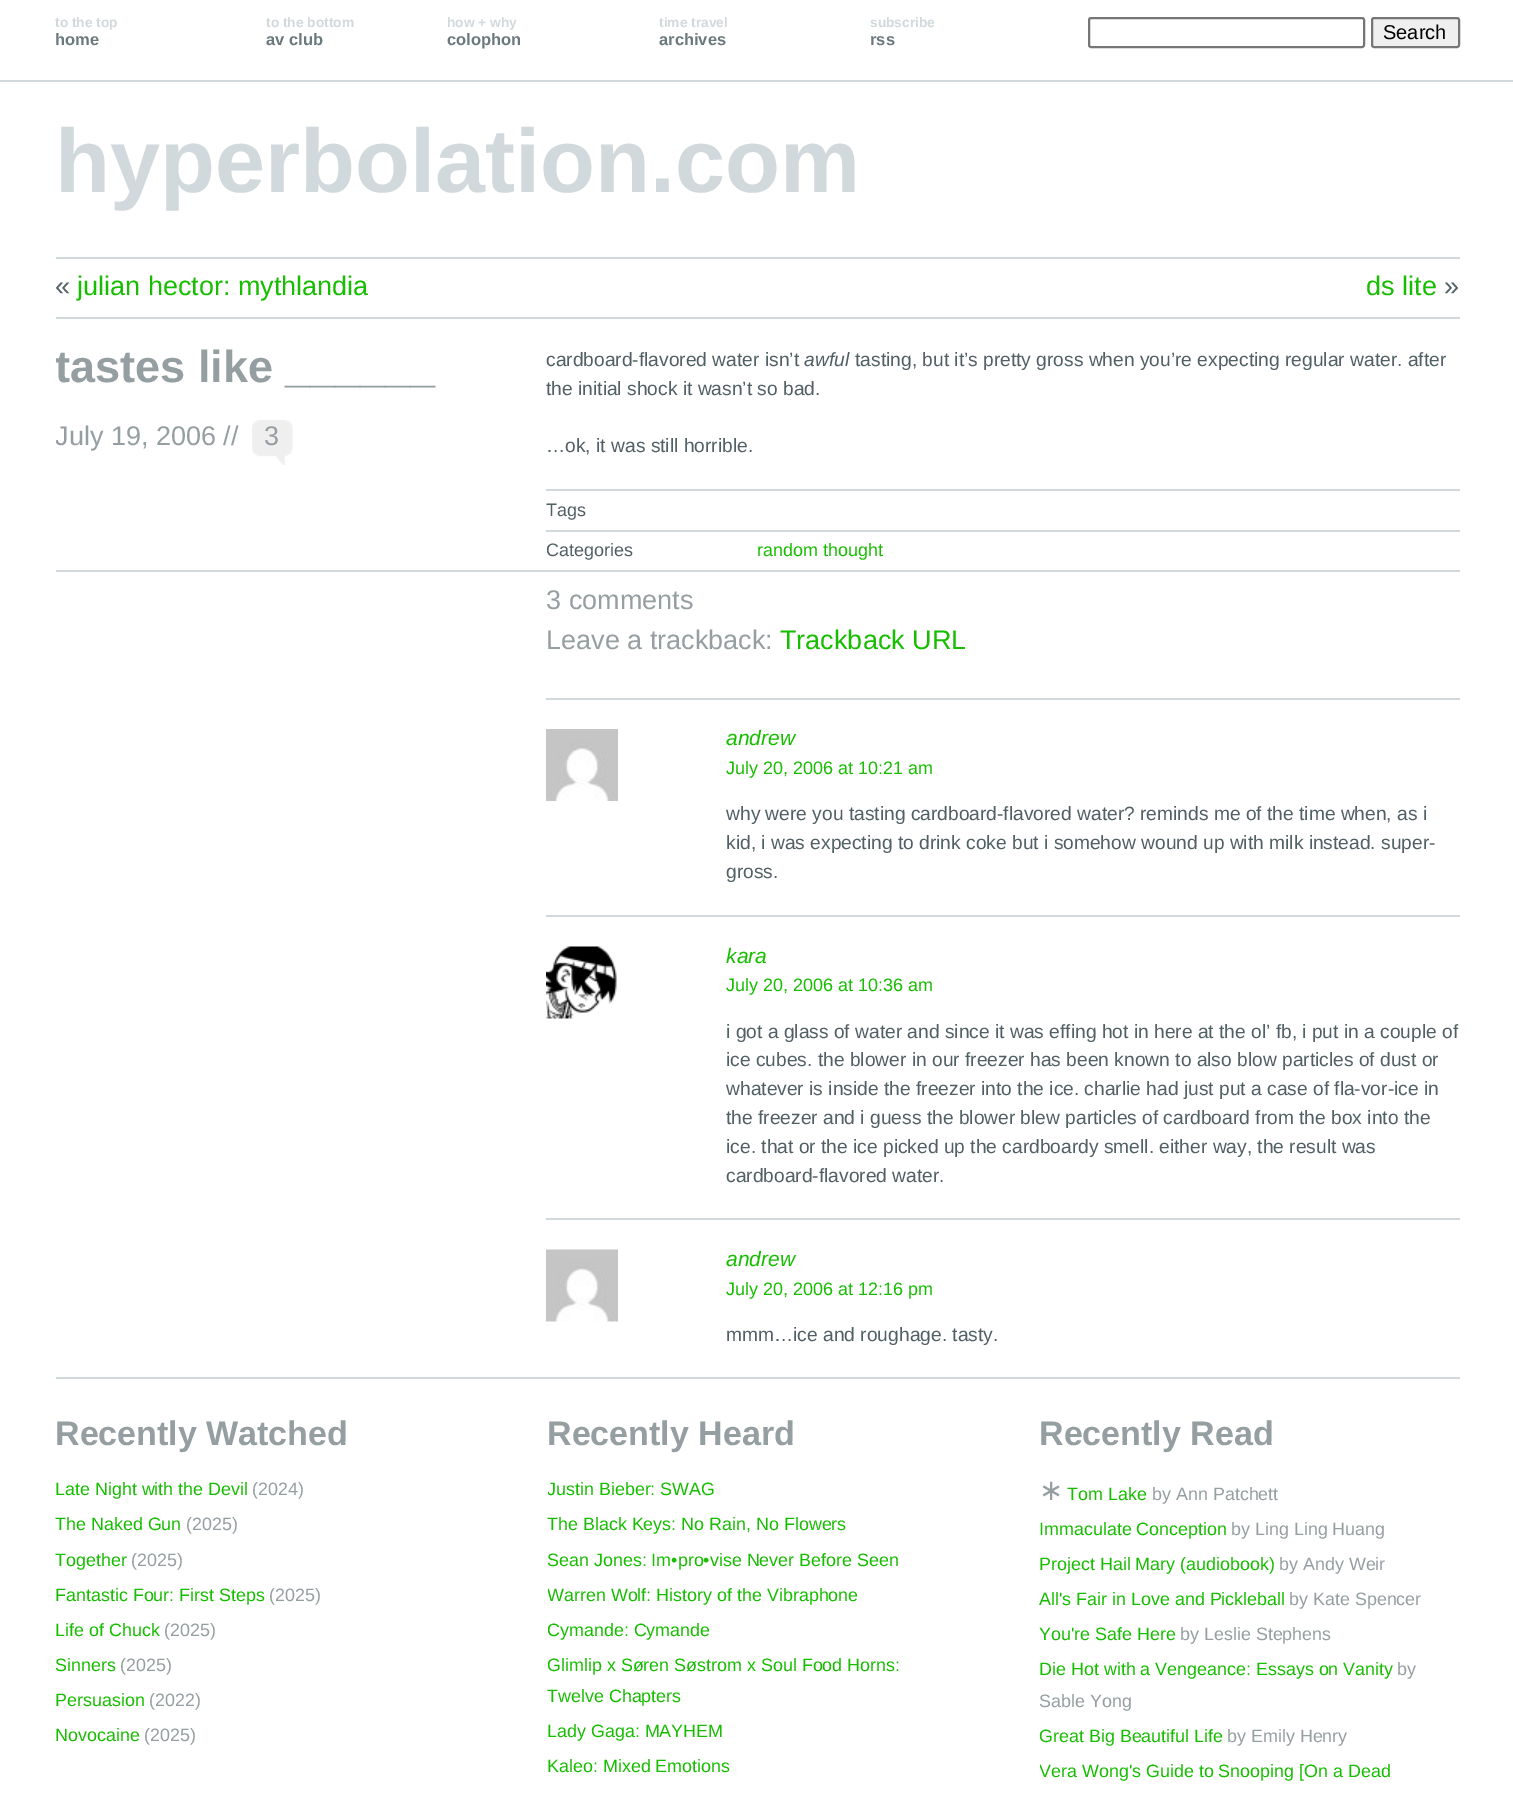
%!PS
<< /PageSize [1513 1798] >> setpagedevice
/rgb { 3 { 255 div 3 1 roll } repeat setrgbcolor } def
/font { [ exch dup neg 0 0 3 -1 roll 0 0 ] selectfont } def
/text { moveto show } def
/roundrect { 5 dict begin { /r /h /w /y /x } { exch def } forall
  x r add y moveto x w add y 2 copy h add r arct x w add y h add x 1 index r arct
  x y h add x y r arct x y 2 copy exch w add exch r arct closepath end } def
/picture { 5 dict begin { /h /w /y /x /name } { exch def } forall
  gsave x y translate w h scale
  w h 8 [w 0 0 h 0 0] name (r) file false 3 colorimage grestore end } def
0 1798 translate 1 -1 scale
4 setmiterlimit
255 255 255 rgb
0 0 1513 1798 rectfill
209 217 220 rgb
0 80 1513 2 rectfill
118 118 118 rgb
2 setlinewidth
1089 18 275 29 2 roundrect stroke
239 239 239 rgb
1372 18 87 29 2 roundrect gsave fill grestore
118 118 118 rgb
stroke
209 217 220 rgb
56 257 1404 2 rectfill
56 317 1404 2 rectfill
(img_01.rgb) 252 420 41 45 picture
546 489 914 2 rectfill
546 530 914 2 rectfill
56 570 1404 2 rectfill
546 698 914 2 rectfill
(img_02.rgb) 546 729 72 72 picture
546 915 914 2 rectfill
(img_03.rgb) 546 946 71 73 picture
546 1218 914 2 rectfill
(img_04.rgb) 546 1249 72 73 picture
56 1377 1404 2 rectfill
/LiberationSans-Bold 13.75 font
(to the top) 55 27 text
/LiberationSans-Bold 16.5 font
106 121 125 rgb
(home) 55 45 text
/LiberationSans-Bold 13.75 font
209 217 220 rgb
(to the bottom) 266 27 text
/LiberationSans-Bold 16.5 font
106 121 125 rgb
(av club) 266 45 text
/LiberationSans-Bold 13.75 font
209 217 220 rgb
(how + why) 447 27 text
/LiberationSans-Bold 16.5 font
106 121 125 rgb
(colophon) 447 45 text
/LiberationSans-Bold 13.75 font
209 217 220 rgb
(time travel) 659 27 text
/LiberationSans-Bold 16.5 font
106 121 125 rgb
(archives) 659 45 text
/LiberationSans-Bold 13.75 font
209 217 220 rgb
(subscribe) 870 27 text
/LiberationSans-Bold 16.5 font
106 121 125 rgb
(rss) 870 45 text
/LiberationSans-Regular 20 font
0 0 0 rgb
(Search) 1383 39 text
/LiberationSans-Bold 90 font
209 217 220 rgb
(hyperbolation.com) 55 192 text
/LiberationSans-Regular 27 font
81 96 100 rgb
(«) 55 295 text
22 189 0 rgb
(julian hector: mythlandia) 77 295 text
(ds lite) 1366 295 text
81 96 100 rgb
(») 1444 295 text
gsave
56 345 432 120 rectclip
/LiberationSans-Bold 45 font
149 158 161 rgb
(tastes like ______) 55 382 text
/LiberationSans-Regular 27 font
(July 19, 2006) 55 445 text
grestore
149 158 161 rgb
(//) 223 445 text
(3) 264 445 text
/LiberationSans-Regular 19.2 font
81 96 100 rgb
(cardboard-flavored water isn’t) 546 366 text
/LiberationSans-Italic 19.2 font
(awful) 804 366 text
/LiberationSans-Regular 19.2 font
(tasting, but it’s pretty gross when you’re expecting regular water. after) 855 366 text
(the initial shock it wasn’t so bad.) 546 395 text
(…ok, it was still horrible.) 546 452 text
/LiberationSans-Regular 18 font
(Tags) 546 516 text
(Categories) 546 556 text
22 189 0 rgb
(random thought) 757 556 text
/LiberationSans-Regular 27 font
149 158 161 rgb
(3 comments) 546 609 text
(Leave a trackback:) 546 649 text
22 189 0 rgb
(Trackback URL) 780 649 text
/LiberationSans-Italic 21 font
(andrew) 726 745 text
/LiberationSans-Regular 18 font
(July 20, 2006 at 10:21 am) 726 774 text
/LiberationSans-Regular 19.2 font
81 96 100 rgb
(why were you tasting cardboard-flavored water? reminds me of the time when, as i) 726 820 text
(kid, i was expecting to drink coke but i somehow wound up with milk instead. super-) 726 849 text
(gross.) 726 878 text
/LiberationSans-Italic 21 font
22 189 0 rgb
(kara) 726 963 text
/LiberationSans-Regular 18 font
(July 20, 2006 at 10:36 am) 726 991 text
/LiberationSans-Regular 19.2 font
81 96 100 rgb
(i got a glass of water and since it was effing hot in here at the ol’ fb, i put in a couple of) 726 1038 text
(ice cubes. the blower in our freezer has been known to also blow particles of dust or) 726 1066 text
(whatever is inside the freezer into the ice. charlie had just put a case of fla-vor-ice in) 726 1095 text
(the freezer and i guess the blower blew particles of cardboard from the box into the) 726 1124 text
(ice. that or the ice picked up the cardboardy smell. either way, the result was) 726 1153 text
(cardboard-flavored water.) 726 1182 text
/LiberationSans-Italic 21 font
22 189 0 rgb
(andrew) 726 1266 text
/LiberationSans-Regular 18 font
(July 20, 2006 at 12:16 pm) 726 1295 text
/LiberationSans-Regular 19.2 font
81 96 100 rgb
(mmm…ice and roughage. tasty.) 726 1341 text
/LiberationSans-Bold 34 font
149 158 161 rgb
(Recently Watched) 55 1445 text
/LiberationSans-Regular 17.9 font
22 189 0 rgb
(Late Night with the Devil) 55 1495 text
149 158 161 rgb
(\(2024\)) 252 1495 text
22 189 0 rgb
(The Naked Gun) 55 1530 text
149 158 161 rgb
(\(2025\)) 186 1530 text
22 189 0 rgb
(Together) 55 1566 text
149 158 161 rgb
(\(2025\)) 131 1566 text
22 189 0 rgb
(Fantastic Four: First Steps) 55 1601 text
149 158 161 rgb
(\(2025\)) 269 1601 text
22 189 0 rgb
(Life of Chuck) 55 1636 text
149 158 161 rgb
(\(2025\)) 164 1636 text
22 189 0 rgb
(Sinners) 55 1671 text
149 158 161 rgb
(\(2025\)) 120 1671 text
22 189 0 rgb
(Persuasion) 55 1706 text
149 158 161 rgb
(\(2022\)) 149 1706 text
22 189 0 rgb
(Novocaine) 55 1741 text
149 158 161 rgb
(\(2025\)) 144 1741 text
/LiberationSans-Bold 34 font
(Recently Heard) 547 1445 text
gsave
548 1475 391 34 rectclip
/LiberationSans-Regular 17.9 font
22 189 0 rgb
(Justin Bieber: SWAG) 547 1495 text
grestore
/LiberationSans-Regular 17.9 font
22 189 0 rgb
(The Black Keys: No Rain, No Flowers) 547 1530 text
(Sean Jones: Im•pro•vise Never Before Seen) 547 1566 text
gsave
548 1580 391 34 rectclip
(Warren Wolf: History of the Vibraphone) 547 1601 text
grestore
gsave
548 1614 391 36 rectclip
(Cymande: Cymande) 547 1636 text
grestore
gsave
548 1650 391 66 rectclip
(Glimlip x Søren Søstrom x Soul Food Horns:) 547 1671 text
grestore
(Twelve Chapters) 547 1702 text
(Lady Gaga: MAYHEM) 547 1737 text
(Kaleo: Mixed Emotions) 547 1772 text
/LiberationSans-Bold 34 font
149 158 161 rgb
(Recently Read) 1039 1445 text
/DejaVuSans-Regular 29 font
(∗) 1039 1500 text
/LiberationSans-Regular 17.9 font
22 189 0 rgb
(Tom Lake) 1067 1500 text
149 158 161 rgb
(by Ann Patchett) 1152 1500 text
22 189 0 rgb
(Immaculate Conception) 1039 1535 text
149 158 161 rgb
(by Ling Ling Huang) 1231 1535 text
22 189 0 rgb
(Project Hail Mary \(audiobook\)) 1039 1570 text
149 158 161 rgb
(by Andy Weir) 1279 1570 text
22 189 0 rgb
(All's Fair in Love and Pickleball) 1039 1605 text
149 158 161 rgb
(by Kate Spencer) 1289 1605 text
22 189 0 rgb
(You're Safe Here) 1039 1640 text
149 158 161 rgb
(by Leslie Stephens) 1180 1640 text
22 189 0 rgb
(Die Hot with a Vengeance: Essays on Vanity) 1039 1675 text
149 158 161 rgb
(by) 1397 1675 text
(Sable Yong) 1039 1707 text
22 189 0 rgb
(Great Big Beautiful Life) 1039 1742 text
149 158 161 rgb
(by Emily Henry) 1227 1742 text
gsave
1040 1757 393 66 rectclip
22 189 0 rgb
(Vera Wong's Guide to Snooping [On a Dead) 1039 1777 text
grestore
showpage
